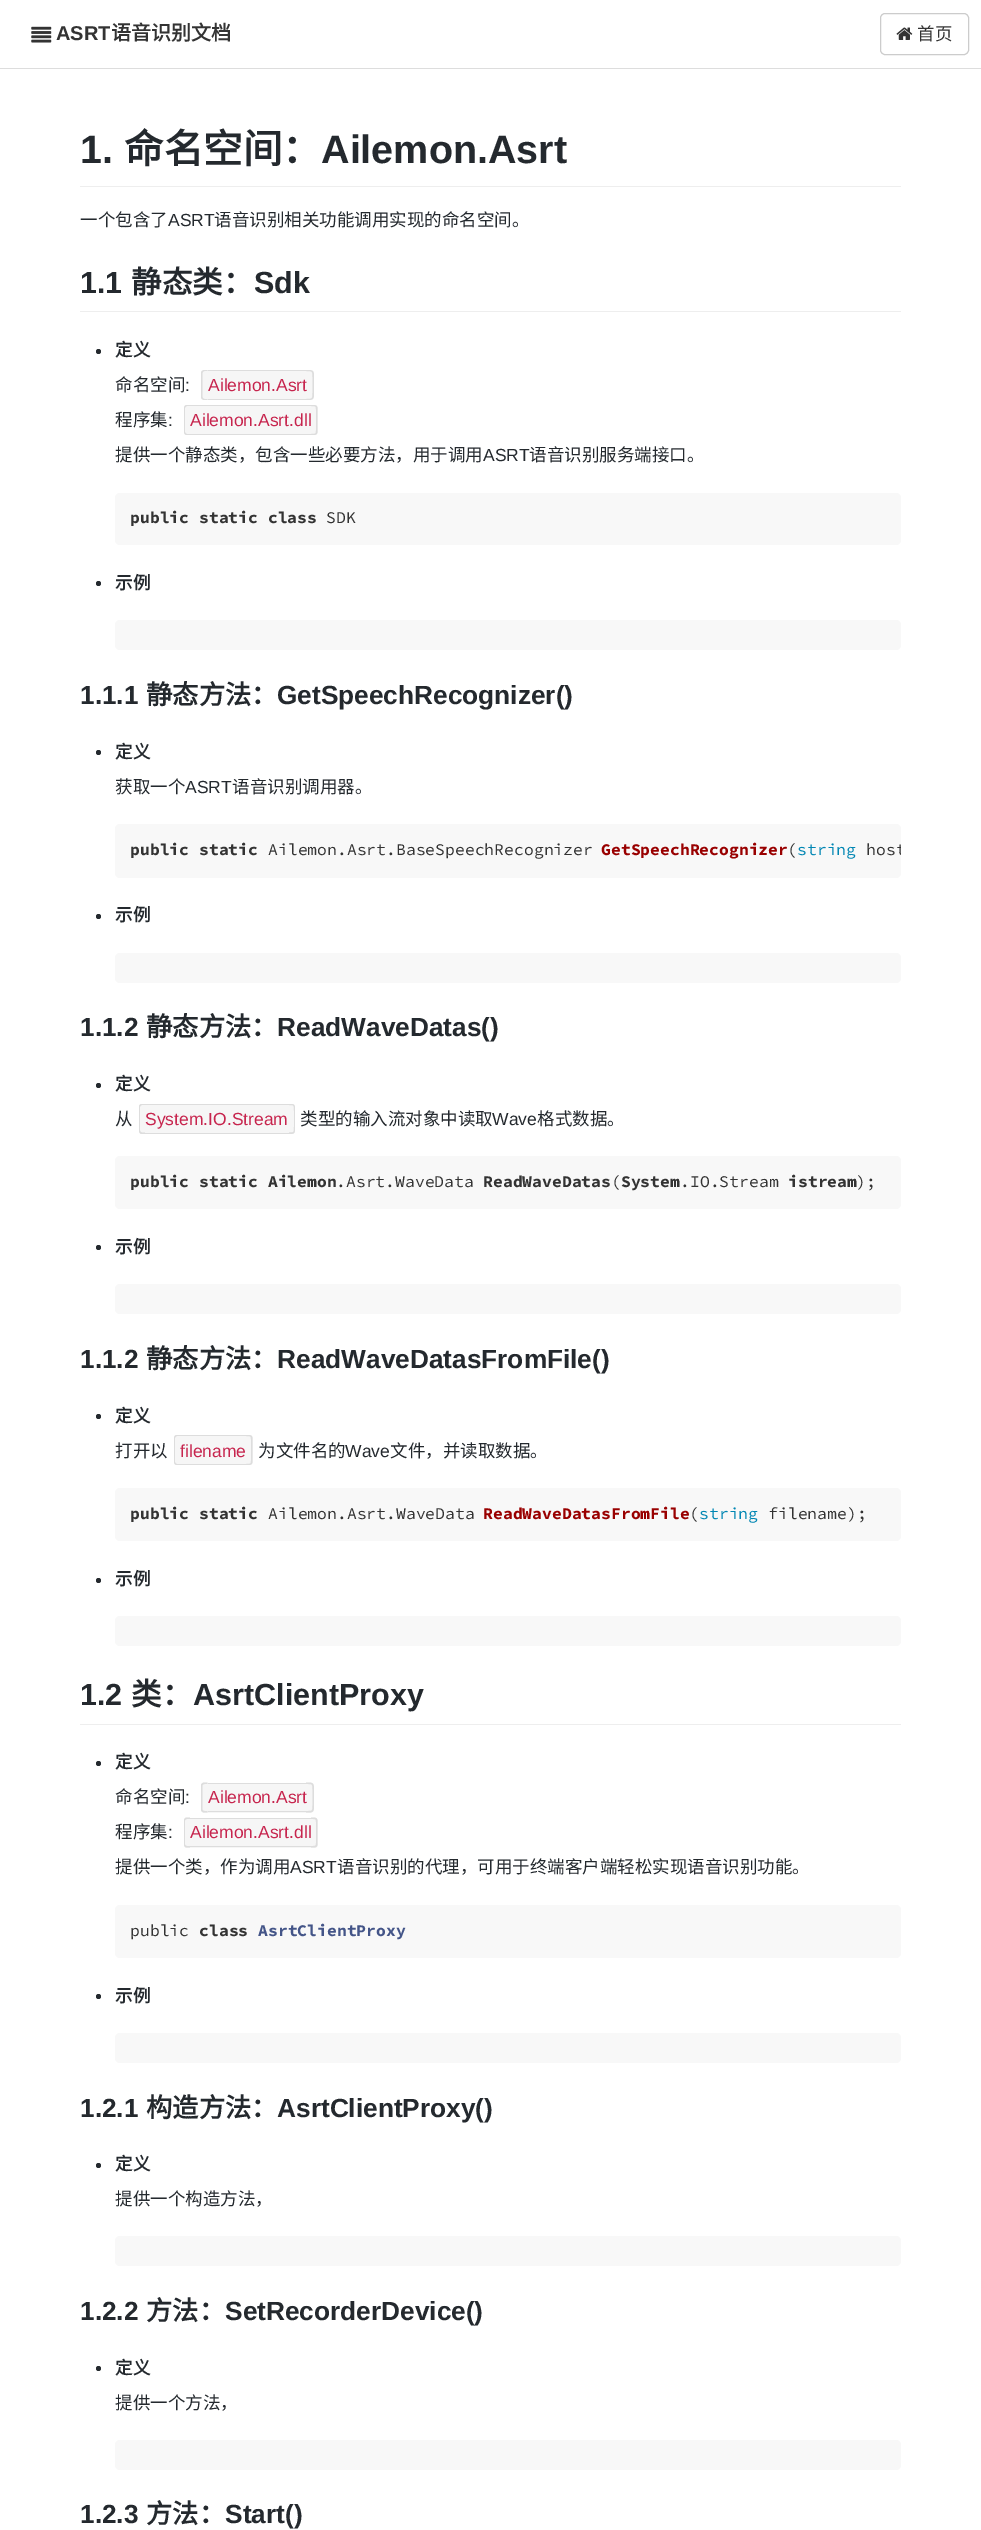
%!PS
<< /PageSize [981 2530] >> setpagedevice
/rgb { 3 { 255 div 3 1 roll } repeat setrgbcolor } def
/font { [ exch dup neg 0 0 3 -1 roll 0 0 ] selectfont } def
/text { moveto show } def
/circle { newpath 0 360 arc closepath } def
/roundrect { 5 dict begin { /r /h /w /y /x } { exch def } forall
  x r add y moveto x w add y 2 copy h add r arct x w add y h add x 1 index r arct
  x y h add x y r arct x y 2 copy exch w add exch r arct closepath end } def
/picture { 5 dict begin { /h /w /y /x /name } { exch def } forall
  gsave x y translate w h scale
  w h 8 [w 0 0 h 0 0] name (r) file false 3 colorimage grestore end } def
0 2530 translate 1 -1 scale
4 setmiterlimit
255 255 255 rgb
0 0 981 2530 rectfill
(img_01.rgb) 31 26 21 17 picture
204 204 204 rgb
880.5 13.5 88 41 4.5 roundrect stroke
(img_02.rgb) 896 27 17 13 picture
221 221 221 rgb
0 68 981 1 rectfill
238 238 238 rgb
80 186 821 1 rectfill
80 311 821 1 rectfill
36 41 46 rgb
98.5 351.5 2.5 circle fill
246 246 246 rgb
204.5 370 moveto 3.5 0 rlineto 0 30 rlineto -3.5 0 rlineto -2 0 -3.5 -1.5 -3.5 -3.5 rcurveto 0 -23 rlineto 0 -2 1.5 -3.5 3.5 -3.5 rcurveto closepath fill
221 221 221 rgb
204.5 370 moveto 3 0 rlineto 0 30 rlineto -3 0 rlineto -2 0 -3.5 -1.5 -3.5 -3 rcurveto 0 -24 rlineto 0 -1.5 1.5 -3 3.5 -3 rcurveto closepath 204.5 371 moveto 3 0 rlineto 0 28 rlineto -3 0 rlineto -1 0 -2 -1 -2 -2 rcurveto 0 -24 rlineto 0 -1 1 -2 2 -2 rcurveto closepath eofill
246 246 246 rgb
208 371 98 28 rectfill
221 221 221 rgb
208 370 98 1 rectfill
208 399 98 1 rectfill
246 246 246 rgb
306 370 moveto 4 0 rlineto 2 0 4 2 4 4 rcurveto 0 22 rlineto 0 2 -2 4 -4 4 rcurveto -4 0 rlineto closepath fill
221 221 221 rgb
306 370 moveto 7 0 8 0 8 7.5 rcurveto 0 15 rlineto 0 7.5 -1 7.5 -8 7.5 rcurveto closepath 306 371 moveto 6.5 0 6.5 0 6.5 6.5 rcurveto 0 15 rlineto 0 6.5 0 6.5 -6.5 6.5 rcurveto closepath eofill
246 246 246 rgb
187 405 moveto 3 0 rlineto 0 30 rlineto -3 0 rlineto -1.5 0 -3 -1.5 -3 -3 rcurveto 0 -24 rlineto 0 -1.5 1.5 -3 3 -3 rcurveto closepath fill
221 221 221 rgb
187 405 moveto 3 0 rlineto 0 30 rlineto -3 0 rlineto -2 0 -3 -1.5 -3 -3 rcurveto 0 -24 rlineto 0 -1.5 1 -3 3 -3 rcurveto closepath 187 406 moveto 3 0 rlineto 0 28 rlineto -3 0 rlineto -1 0 -2 -1 -2 -2 rcurveto 0 -24 rlineto 0 -1 1 -2 2 -2 rcurveto closepath eofill
246 246 246 rgb
190 406 121 28 rectfill
221 221 221 rgb
190 405 121 1 rectfill
190 434 121 1 rectfill
246 246 246 rgb
311 405 moveto 3.5 0 rlineto 2 0 3.5 1.5 3.5 3.5 rcurveto 0 23 rlineto 0 2 -1.5 3.5 -3.5 3.5 rcurveto -3.5 0 rlineto closepath fill
221 221 221 rgb
311 405 moveto 6.5 0 6.5 0.5 6.5 7 rcurveto 0 16 rlineto 0 6.5 0 7 -6.5 7 rcurveto closepath 311 406 moveto 5.5 0 5 0 5 6 rcurveto 0 16 rlineto 0 6 0.5 6 -5 6 rcurveto closepath eofill
248 248 248 rgb
115 493 786 52 5 roundrect fill
36 41 46 rgb
98.5 583.5 2.5 circle fill
248 248 248 rgb
115 620 786 30 5 roundrect fill
36 41 46 rgb
98.5 752.5 2.5 circle fill
248 248 248 rgb
115 824 786 54 5 roundrect fill
36 41 46 rgb
98.5 916.5 2.5 circle fill
248 248 248 rgb
115 953 786 30 5 roundrect fill
36 41 46 rgb
98.5 1085.5 2.5 circle fill
246 246 246 rgb
142 1104 moveto 3 0 rlineto 0 30 rlineto -3 0 rlineto -1.5 0 -3 -1.5 -3 -3 rcurveto 0 -24 rlineto 0 -1.5 1.5 -3 3 -3 rcurveto closepath fill
221 221 221 rgb
142 1104 moveto 3 0 rlineto 0 30 rlineto -3 0 rlineto -2 0 -3 -1.5 -3 -3.5 rcurveto 0 -23.5 rlineto 0 -2 1 -3 3 -3 rcurveto closepath 142 1105 moveto 3 0 rlineto 0 27.5 rlineto -3 0 rlineto -1 0 -2 -1 -2 -2 rcurveto 0 -23.5 rlineto 0 -1 1 -2 2 -2 rcurveto closepath eofill
246 246 246 rgb
145 1105 144 28 rectfill
221 221 221 rgb
145 1104 144 1 rectfill
145 1133 144 1 rectfill
246 246 246 rgb
289 1104 moveto 3 0 rlineto 1.5 0 3 1.5 3 3 rcurveto 0 24 rlineto 0 1.5 -1.5 3 -3 3 rcurveto -3 0 rlineto closepath fill
221 221 221 rgb
289 1104 moveto 6 0 6 0.5 6 7 rcurveto 0 15.5 rlineto 0 6.5 0 7.5 -6 7.5 rcurveto closepath 289 1105 moveto 5 0 5 0 5 6 rcurveto 0 15.5 rlineto 0 6 0 6 -5 6 rcurveto closepath eofill
248 248 248 rgb
115 1156 786 53 5 roundrect fill
36 41 46 rgb
98.5 1247.5 2.5 circle fill
248 248 248 rgb
115 1284 786 30 5 roundrect fill
36 41 46 rgb
98.5 1416.5 2.5 circle fill
246 246 246 rgb
177 1435 moveto 3 0 rlineto 0 30 rlineto -3 0 rlineto -1.5 0 -3 -1.5 -3 -3 rcurveto 0 -24 rlineto 0 -1.5 1.5 -3 3 -3 rcurveto closepath fill
221 221 221 rgb
177 1435 moveto 3 0 rlineto 0 30 rlineto -3 0 rlineto -2 0 -3 -1.5 -3 -3 rcurveto 0 -24 rlineto 0 -1.5 1 -3 3 -3 rcurveto closepath 177 1436 moveto 3 0 rlineto 0 28 rlineto -3 0 rlineto -1 0 -2 -1 -2 -2 rcurveto 0 -24 rlineto 0 -1 1 -2 2 -2 rcurveto closepath eofill
246 246 246 rgb
180 1436 66 28 rectfill
221 221 221 rgb
180 1435 66 1 rectfill
180 1464 66 1 rectfill
246 246 246 rgb
246 1435 moveto 3.5 0 rlineto 2 0 3.5 1.5 3.5 3.5 rcurveto 0 23 rlineto 0 2 -1.5 3.5 -3.5 3.5 rcurveto -3.5 0 rlineto closepath fill
221 221 221 rgb
246 1435 moveto 6.5 0 6.5 0.5 6.5 7 rcurveto 0 16 rlineto 0 6.5 0 7 -6.5 7 rcurveto closepath 246 1436 moveto 5.5 0 5 0 5 6 rcurveto 0 16 rlineto 0 6 0.5 6 -5 6 rcurveto closepath eofill
248 248 248 rgb
115 1488 786 53 5 roundrect fill
36 41 46 rgb
98.5 1580.5 2.5 circle fill
248 248 248 rgb
115 1616 786 30 5 roundrect fill
238 238 238 rgb
80 1724 821 1 rectfill
36 41 46 rgb
98.5 1763.5 2.5 circle fill
246 246 246 rgb
204.5 1783 moveto 3.5 0 rlineto 0 30 rlineto -3.5 0 rlineto -2 0 -3.5 -1.5 -3.5 -3.5 rcurveto 0 -23 rlineto 0 -2 1.5 -3.5 3.5 -3.5 rcurveto closepath fill
221 221 221 rgb
204.5 1782.5 moveto 3 0 rlineto 0 30 rlineto -3 0 rlineto -2 0 -3.5 -1.5 -3.5 -3 rcurveto 0 -24 rlineto 0 -1.5 1.5 -3 3.5 -3 rcurveto closepath 204.5 1784 moveto 3 0 rlineto 0 27 rlineto -3 0 rlineto -1 0 -2 -0.5 -2 -1.5 rcurveto 0 -24 rlineto 0 -1 1 -1.5 2 -1.5 rcurveto closepath eofill
246 246 246 rgb
208 1784 98 29 rectfill
221 221 221 rgb
208 1783 98 1 rectfill
208 1811 98 1 rectfill
246 246 246 rgb
306 1783 moveto 4 0 rlineto 2 0 4 2 4 4 rcurveto 0 22 rlineto 0 2 -2 4 -4 4 rcurveto -4 0 rlineto closepath fill
221 221 221 rgb
306 1782.5 moveto 7 0 8 0 8 7.5 rcurveto 0 15 rlineto 0 7.5 -1 7.5 -8 7.5 rcurveto closepath 306 1784 moveto 6.5 0 6.5 -0.5 6.5 6 rcurveto 0 15 rlineto 0 6.5 0 6 -6.5 6 rcurveto closepath eofill
246 246 246 rgb
187 1818 moveto 3 0 rlineto 0 30 rlineto -3 0 rlineto -1.5 0 -3 -1.5 -3 -3 rcurveto 0 -24 rlineto 0 -1.5 1.5 -3 3 -3 rcurveto closepath fill
221 221 221 rgb
187 1817.5 moveto 3 0 rlineto 0 30 rlineto -3 0 rlineto -2 0 -3 -1.5 -3 -3 rcurveto 0 -24 rlineto 0 -1.5 1 -3 3 -3 rcurveto closepath 187 1819 moveto 3 0 rlineto 0 27 rlineto -3 0 rlineto -1 0 -2 -0.5 -2 -1.5 rcurveto 0 -24 rlineto 0 -1 1 -1.5 2 -1.5 rcurveto closepath eofill
246 246 246 rgb
190 1819 121 29 rectfill
221 221 221 rgb
190 1818 121 1 rectfill
190 1846 121 1 rectfill
246 246 246 rgb
311 1818 moveto 3.5 0 rlineto 2 0 3.5 1.5 3.5 3.5 rcurveto 0 23 rlineto 0 2 -1.5 3.5 -3.5 3.5 rcurveto -3.5 0 rlineto closepath fill
221 221 221 rgb
311 1817.5 moveto 6.5 0 6.5 0.5 6.5 7 rcurveto 0 16 rlineto 0 6.5 0 7 -6.5 7 rcurveto closepath 311 1819 moveto 5.5 0 5 -0.5 5 5.5 rcurveto 0 16 rlineto 0 6 0.5 5.5 -5 5.5 rcurveto closepath eofill
248 248 248 rgb
115 1905 786 53 5 roundrect fill
36 41 46 rgb
98.5 1996.5 2.5 circle fill
248 248 248 rgb
115 2033 786 30 5 roundrect fill
36 41 46 rgb
98.5 2165.5 2.5 circle fill
248 248 248 rgb
115 2236 786 30 5 roundrect fill
36 41 46 rgb
98.5 2368.5 2.5 circle fill
248 248 248 rgb
115 2440 786 30 5 roundrect fill
/LiberationSans-Bold 20 font
51 51 51 rgb
(ASRT) 56 40 text
/NotoSansCJKSC-Bold 20 font
(语音识别文档) 111 40 text
/NotoSansCJKSC-Regular 17.5 font
(首页) 917 40 text
/LiberationSans-Bold 39.5 font
36 41 46 rgb
(1.) 80 163 text
/NotoSansCJKSC-Bold 39.5 font
(命名空间：) 124 163 text
/LiberationSans-Bold 39.5 font
(Ailemon.Asrt) 321 163 text
/NotoSansCJKSC-Regular 17.5 font
(一个包含了) 80 226 text
/LiberationSans-Regular 17.5 font
(ASRT) 168 226 text
/NotoSansCJKSC-Regular 17.5 font
(语音识别相关功能调用实现的命名空间。) 214 226 text
/LiberationSans-Bold 30.5 font
(1.1) 80 293 text
/NotoSansCJKSC-Bold 30.5 font
(静态类：) 131 293 text
/LiberationSans-Bold 30.5 font
(Sdk) 254 293 text
/NotoSansCJKSC-Bold 17.5 font
(定义) 115 356 text
/NotoSansCJKSC-Regular 17.5 font
(命名空间) 115 391 text
/LiberationSans-Regular 17.5 font
(:) 185 391 text
199 37 78 rgb
(Ailemon.Asrt) 208 391 text
/NotoSansCJKSC-Regular 17.5 font
36 41 46 rgb
(程序集) 115 426 text
/LiberationSans-Regular 17.5 font
(:) 168 426 text
199 37 78 rgb
(Ailemon.Asrt.dll) 190 426 text
/NotoSansCJKSC-Regular 17.5 font
36 41 46 rgb
(提供一个静态类，包含一些必要方法，用于调用) 115 461 text
/LiberationSans-Regular 17.5 font
(ASRT) 483 461 text
/NotoSansCJKSC-Regular 17.5 font
(语音识别服务端接口。) 529 461 text
/SourceCodePro-Bold 16.4 font
51 51 51 rgb
(public static class) 130 523 text
/SourceCodePro-Regular 16.4 font
(SDK) 326 523 text
/NotoSansCJKSC-Bold 17.5 font
36 41 46 rgb
(示例) 115 589 text
/LiberationSans-Bold 26.25 font
(1.1.1) 80 704 text
/NotoSansCJKSC-Bold 26.25 font
(静态方法：) 146 704 text
/LiberationSans-Bold 26.25 font
(GetSpeechRecognizer\(\)) 277 704 text
/NotoSansCJKSC-Bold 17.5 font
(定义) 115 758 text
/NotoSansCJKSC-Regular 17.5 font
(获取一个) 115 793 text
/LiberationSans-Regular 17.5 font
(ASRT) 185 793 text
/NotoSansCJKSC-Regular 17.5 font
(语音识别调用器。) 232 793 text
/SourceCodePro-Bold 16.4 font
51 51 51 rgb
(public static) 130 855 text
/SourceCodePro-Regular 16.4 font
(Ailemon.Asrt.BaseSpeechRecognizer) 268 855 text
/SourceCodePro-Bold 16.4 font
153 0 0 rgb
(GetSpeechRecognizer) 601 855 text
/SourceCodePro-Regular 16.4 font
51 51 51 rgb
(\() 787 855 text
0 134 179 rgb
(string) 797 855 text
gsave
115 824 786 54 5 roundrect clip newpath
51 51 51 rgb
(host) 866 855 text
grestore
/NotoSansCJKSC-Bold 17.5 font
36 41 46 rgb
(示例) 115 921 text
/LiberationSans-Bold 26.25 font
(1.1.2) 80 1036 text
/NotoSansCJKSC-Bold 26.25 font
(静态方法：) 146 1036 text
/LiberationSans-Bold 26.25 font
(ReadWaveDatas\(\)) 277 1036 text
/NotoSansCJKSC-Bold 17.5 font
(定义) 115 1090 text
/NotoSansCJKSC-Regular 17.5 font
(从) 115 1125 text
/LiberationSans-Regular 17.5 font
199 37 78 rgb
(System.IO.Stream) 145 1125 text
/NotoSansCJKSC-Regular 17.5 font
36 41 46 rgb
(类型的输入流对象中读取) 300 1125 text
/LiberationSans-Regular 17.5 font
(Wave) 492 1125 text
/NotoSansCJKSC-Regular 17.5 font
(格式数据。) 537 1125 text
/SourceCodePro-Bold 16.4 font
51 51 51 rgb
(public static Ailemon) 130 1187 text
(ReadWaveDatas System) 483 1187 text
(istream) 788 1187 text
/SourceCodePro-Regular 16.4 font
(.Asrt.WaveData) 336 1187 text
(\() 611 1187 text
(.IO.Stream) 680 1187 text
(\);) 856 1187 text
/NotoSansCJKSC-Bold 17.5 font
36 41 46 rgb
(示例) 115 1253 text
/LiberationSans-Bold 26.25 font
(1.1.2) 80 1368 text
/NotoSansCJKSC-Bold 26.25 font
(静态方法：) 146 1368 text
/LiberationSans-Bold 26.25 font
(ReadWaveDatasFromFile\(\)) 277 1368 text
/NotoSansCJKSC-Bold 17.5 font
(定义) 115 1422 text
/NotoSansCJKSC-Regular 17.5 font
(打开以) 115 1457 text
/LiberationSans-Regular 17.5 font
199 37 78 rgb
(filename) 180 1457 text
/NotoSansCJKSC-Regular 17.5 font
36 41 46 rgb
(为文件名的) 258 1457 text
/LiberationSans-Regular 17.5 font
(Wave) 345 1457 text
/NotoSansCJKSC-Regular 17.5 font
(文件，并读取数据。) 390 1457 text
/SourceCodePro-Bold 16.4 font
51 51 51 rgb
(public static) 130 1519 text
/SourceCodePro-Regular 16.4 font
(Ailemon.Asrt.WaveData) 268 1519 text
/SourceCodePro-Bold 16.4 font
153 0 0 rgb
(ReadWaveDatasFromFile) 483 1519 text
/SourceCodePro-Regular 16.4 font
51 51 51 rgb
(\() 689 1519 text
0 134 179 rgb
(string) 699 1519 text
51 51 51 rgb
(filename\);) 768 1519 text
/NotoSansCJKSC-Bold 17.5 font
36 41 46 rgb
(示例) 115 1585 text
/LiberationSans-Bold 30.5 font
(1.2) 80 1705 text
/NotoSansCJKSC-Bold 30.5 font
(类：) 131 1705 text
/LiberationSans-Bold 30.5 font
(AsrtClientProxy) 193 1705 text
/NotoSansCJKSC-Bold 17.5 font
(定义) 115 1768 text
/NotoSansCJKSC-Regular 17.5 font
(命名空间) 115 1803 text
/LiberationSans-Regular 17.5 font
(:) 185 1803 text
199 37 78 rgb
(Ailemon.Asrt) 208 1803 text
/NotoSansCJKSC-Regular 17.5 font
36 41 46 rgb
(程序集) 115 1838 text
/LiberationSans-Regular 17.5 font
(:) 168 1838 text
199 37 78 rgb
(Ailemon.Asrt.dll) 190 1838 text
/NotoSansCJKSC-Regular 17.5 font
36 41 46 rgb
(提供一个类，作为调用) 115 1873 text
/LiberationSans-Regular 17.5 font
(ASRT) 290 1873 text
/NotoSansCJKSC-Regular 17.5 font
(语音识别的代理，可用于终端客户端轻松实现语音识别功能。) 337 1873 text
/SourceCodePro-Regular 16.4 font
51 51 51 rgb
(public) 130 1936 text
/SourceCodePro-Bold 16.4 font
(class) 199 1936 text
68 85 136 rgb
(AsrtClientProxy) 258 1936 text
/NotoSansCJKSC-Bold 17.5 font
36 41 46 rgb
(示例) 115 2002 text
/LiberationSans-Bold 26.25 font
(1.2.1) 80 2117 text
/NotoSansCJKSC-Bold 26.25 font
(构造方法：) 146 2117 text
/LiberationSans-Bold 26.25 font
(AsrtClientProxy\(\)) 277 2117 text
/NotoSansCJKSC-Bold 17.5 font
(定义) 115 2170 text
/NotoSansCJKSC-Regular 17.5 font
(提供一个构造方法，) 115 2205 text
/LiberationSans-Bold 26.25 font
(1.2.2) 80 2320 text
/NotoSansCJKSC-Bold 26.25 font
(方法：) 146 2320 text
/LiberationSans-Bold 26.25 font
(SetRecorderDevice\(\)) 225 2320 text
/NotoSansCJKSC-Bold 17.5 font
(定义) 115 2374 text
/NotoSansCJKSC-Regular 17.5 font
(提供一个方法，) 115 2409 text
/LiberationSans-Bold 26.25 font
(1.2.3) 80 2523 text
/NotoSansCJKSC-Bold 26.25 font
(方法：) 146 2523 text
/LiberationSans-Bold 26.25 font
(Start\(\)) 225 2523 text
showpage
